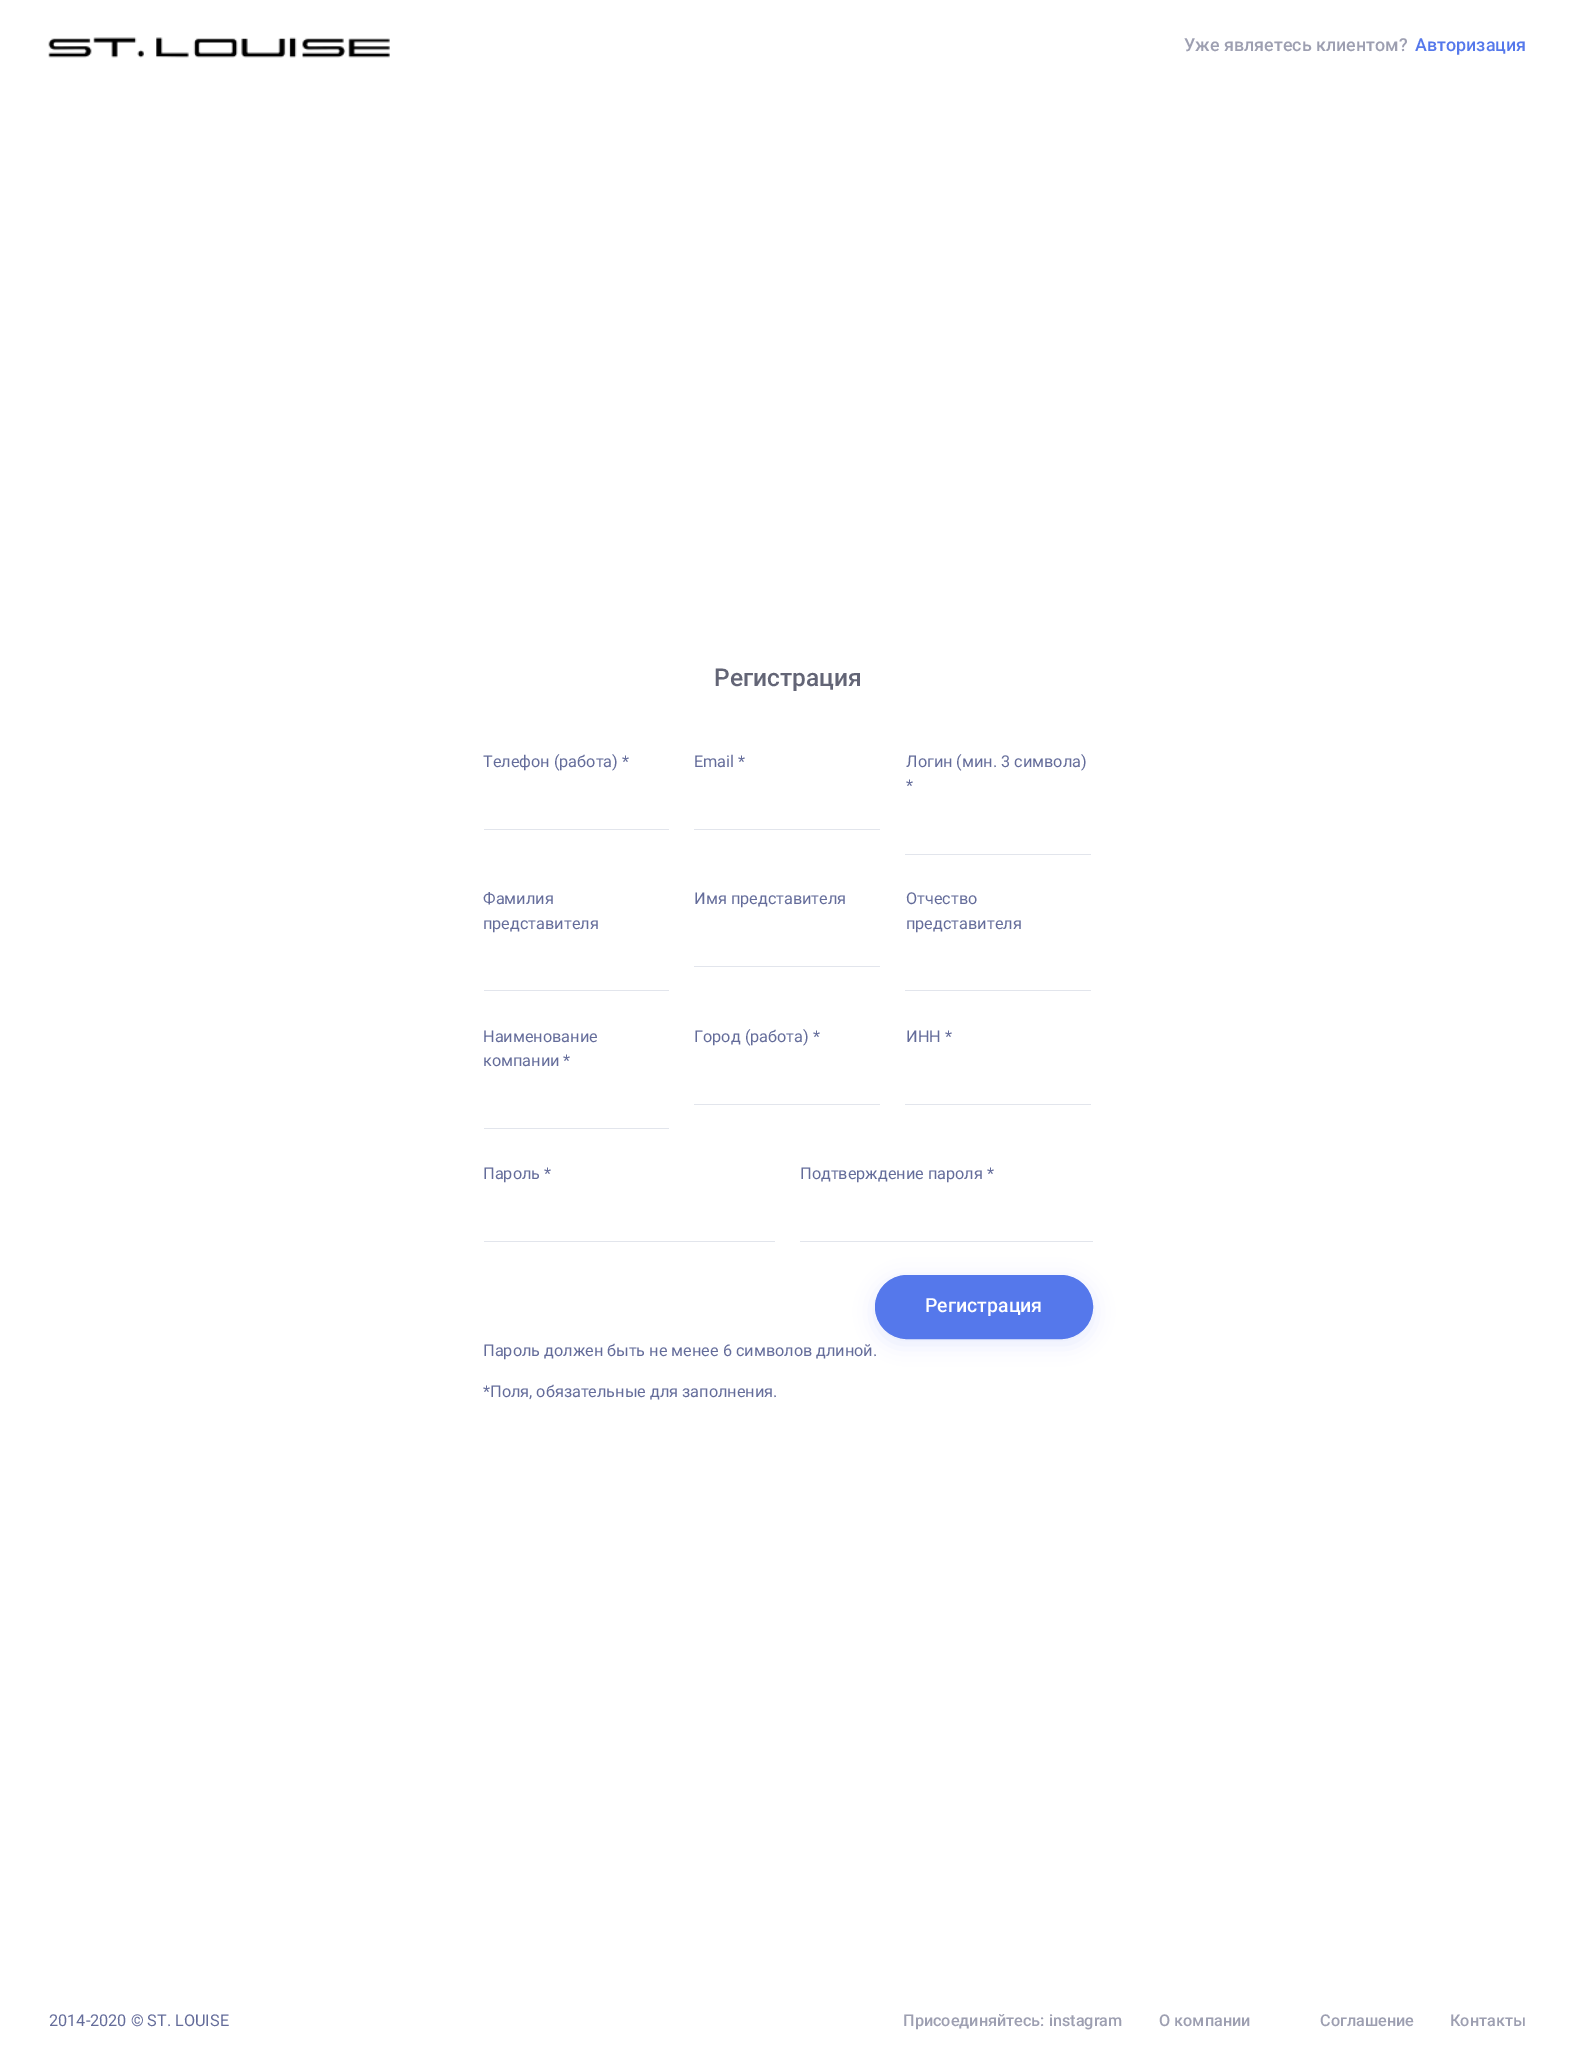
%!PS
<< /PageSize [1574 2064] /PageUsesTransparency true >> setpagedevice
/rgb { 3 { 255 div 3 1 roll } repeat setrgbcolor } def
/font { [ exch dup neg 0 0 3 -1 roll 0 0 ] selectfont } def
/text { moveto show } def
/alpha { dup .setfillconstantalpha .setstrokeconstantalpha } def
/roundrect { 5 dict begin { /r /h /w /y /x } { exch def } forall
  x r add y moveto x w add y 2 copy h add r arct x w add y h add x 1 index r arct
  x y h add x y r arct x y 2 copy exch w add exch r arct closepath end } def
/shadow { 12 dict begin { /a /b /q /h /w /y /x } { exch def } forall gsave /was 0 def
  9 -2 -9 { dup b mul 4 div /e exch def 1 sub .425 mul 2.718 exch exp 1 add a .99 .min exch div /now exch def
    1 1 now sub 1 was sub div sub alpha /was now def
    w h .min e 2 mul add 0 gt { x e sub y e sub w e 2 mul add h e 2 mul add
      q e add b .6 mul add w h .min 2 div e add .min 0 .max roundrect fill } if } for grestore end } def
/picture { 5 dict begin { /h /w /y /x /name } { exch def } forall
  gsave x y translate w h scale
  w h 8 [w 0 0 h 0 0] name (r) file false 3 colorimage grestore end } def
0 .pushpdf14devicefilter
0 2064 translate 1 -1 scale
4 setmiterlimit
255 255 255 rgb
0 0 1574 2064 rectfill
(img_01.rgb) 48 37 342 21 picture
226 229 236 rgb
484 829 185 1 rectfill
694 829 186 1 rectfill
905 854 186 1 rectfill
484 990 185 1 rectfill
694 966 186 1 rectfill
905 990 186 1 rectfill
484 1128 185 1 rectfill
694 1104 186 1 rectfill
905 1104 186 1 rectfill
484 1241 291 1 rectfill
800 1241 293 1 rectfill
85 120 235 rgb
875 1280 218 64 32 10 0.15 shadow
875.5 1275.5 217 63 31.5 roundrect gsave fill grestore
stroke
/Roboto-Medium 17.9 font
157 159 177 rgb
(Уже являетесь клиентом?) 1184 51 text
85 120 235 rgb
(Авторизация) 1415 51 text
/Roboto-Medium 24.5 font
99 101 118 rgb
(Регистрация) 714 686 text
/Roboto-Regular 16.25 font
100 108 154 rgb
(Телефон \(работа\) *) 483 767 text
(Email *) 694 767 text
(Логин \(мин. 3 символа\)) 906 767 text
(*) 906 791 text
(Фамилия) 483 904 text
(представителя) 483 929 text
(Имя представителя) 694 904 text
(Отчество) 906 904 text
(представителя) 906 929 text
(Наименование) 483 1042 text
(компании *) 483 1066 text
(Город \(работа\) *) 694 1042 text
(ИНН *) 906 1042 text
(Пароль *) 483 1179 text
(Подтверждение пароля *) 800 1179 text
/Roboto-Medium 19.5 font
255 255 255 rgb
(Регистрация) 925 1312 text
/Roboto-Regular 16.25 font
100 108 154 rgb
(Пароль должен быть не менее 6 символов длиной.) 483 1356 text
(*Поля, обязательные для заполнения.) 483 1397 text
(2014-2020 © ST. LOUISE) 49 2026 text
/Roboto-Medium 16.25 font
157 159 177 rgb
(Присоединяйтесь: instagram) 903 2026 text
(О компании) 1159 2026 text
(Соглашение) 1320 2026 text
(Контакты) 1450 2026 text
.poppdf14devicefilter showpage
